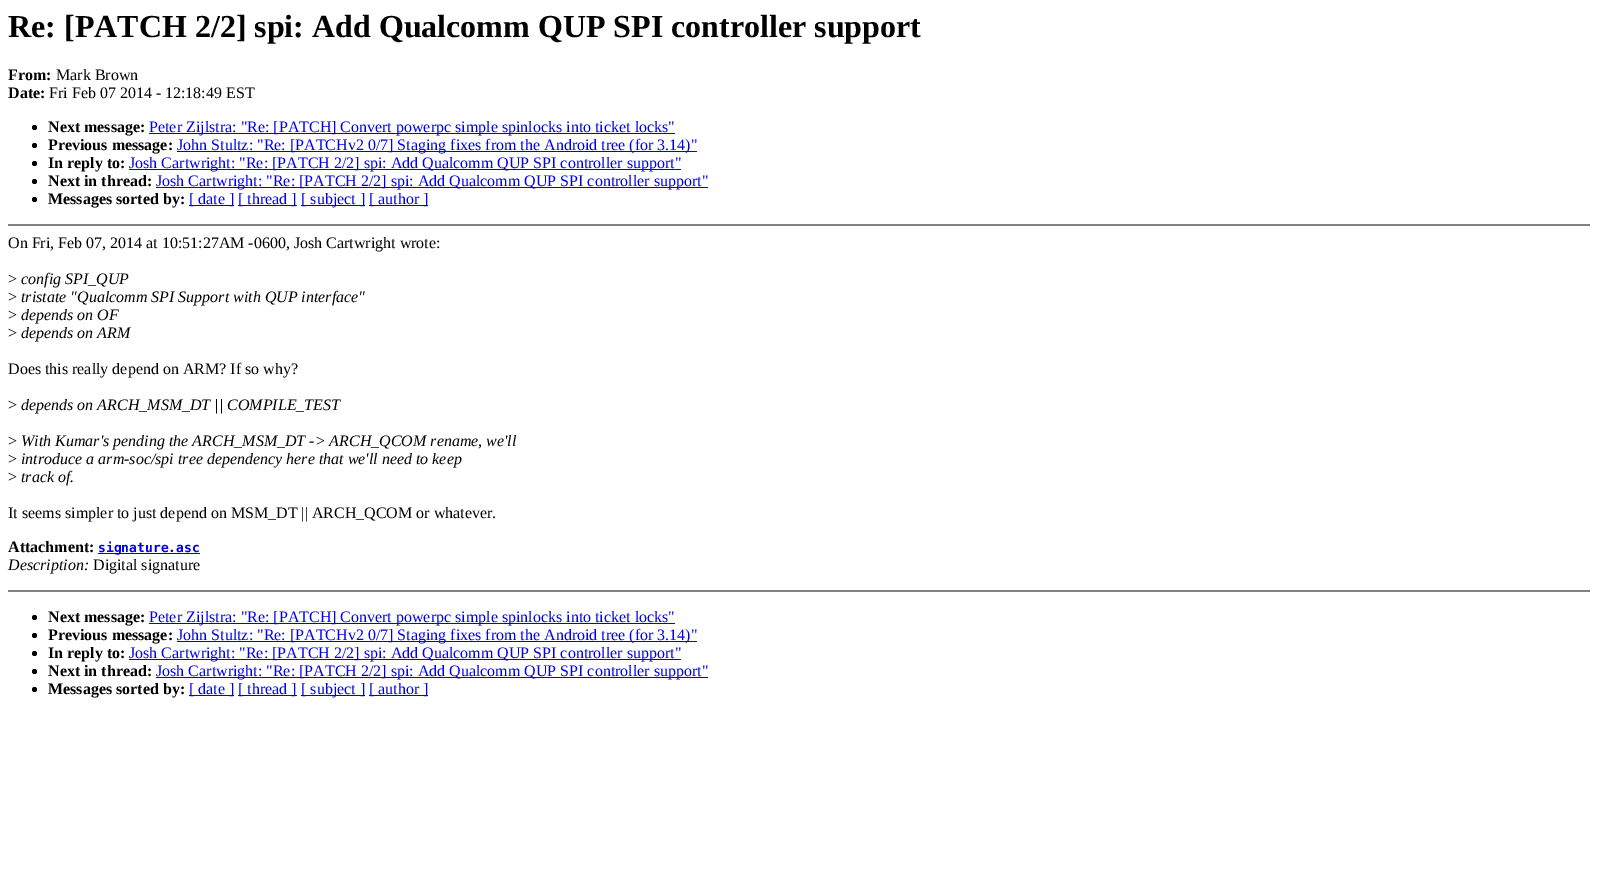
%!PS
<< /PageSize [1598 893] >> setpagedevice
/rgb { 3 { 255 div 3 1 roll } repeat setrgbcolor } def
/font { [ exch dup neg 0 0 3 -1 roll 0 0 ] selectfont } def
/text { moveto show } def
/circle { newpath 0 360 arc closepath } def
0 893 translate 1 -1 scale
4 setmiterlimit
255 255 255 rgb
0 0 1598 893 rectfill
0 0 0 rgb
34.5 127.5 2.5 circle fill
0 0 238 rgb
149 133 526 1 rectfill
0 0 0 rgb
34.5 145.5 2.5 circle fill
0 0 238 rgb
177 151 520 1 rectfill
0 0 0 rgb
34.5 163.5 2.5 circle fill
0 0 238 rgb
129 169 552 1 rectfill
0 0 0 rgb
34.5 181.5 2.5 circle fill
0 0 238 rgb
156 187 552 1 rectfill
0 0 0 rgb
34.5 199.5 2.5 circle fill
0 0 238 rgb
189 205 45 1 rectfill
238 205 59 1 rectfill
301 205 64 1 rectfill
369 205 59 1 rectfill
128 128 128 rgb
8 224 1582 2 rectfill
0 0 238 rgb
98 553 102 1 rectfill
128 128 128 rgb
8 590 1582 2 rectfill
0 0 0 rgb
34.5 617.5 2.5 circle fill
0 0 238 rgb
149 623 526 1 rectfill
0 0 0 rgb
34.5 635.5 2.5 circle fill
0 0 238 rgb
177 641 520 1 rectfill
0 0 0 rgb
34.5 653.5 2.5 circle fill
0 0 238 rgb
129 659 552 1 rectfill
0 0 0 rgb
34.5 671.5 2.5 circle fill
0 0 238 rgb
156 677 552 1 rectfill
0 0 0 rgb
34.5 689.5 2.5 circle fill
0 0 238 rgb
189 695 45 1 rectfill
238 695 59 1 rectfill
301 695 64 1 rectfill
369 695 59 1 rectfill
/LiberationSerif-Bold 32 font
0 0 0 rgb
(Re: [PATCH 2/2] spi: Add Qualcomm QUP SPI controller support) 8 37 text
/LiberationSerif-Bold 16 font
(From:) 8 80 text
/LiberationSerif-Regular 16 font
(Mark Brown) 56 80 text
/LiberationSerif-Bold 16 font
(Date:) 8 98 text
/LiberationSerif-Regular 16 font
(Fri Feb 07 2014 - 12:18:49 EST) 49 98 text
/LiberationSerif-Bold 16 font
(Next message:) 48 132 text
/LiberationSerif-Regular 16 font
0 0 238 rgb
(Peter Zijlstra: "Re: [PATCH] Convert powerpc simple spinlocks into ticket locks") 149 132 text
/LiberationSerif-Bold 16 font
0 0 0 rgb
(Previous message:) 48 150 text
/LiberationSerif-Regular 16 font
0 0 238 rgb
(John Stultz: "Re: [PATCHv2 0/7] Staging fixes from the Android tree \(for 3.14\)") 177 150 text
/LiberationSerif-Bold 16 font
0 0 0 rgb
(In reply to:) 48 168 text
/LiberationSerif-Regular 16 font
0 0 238 rgb
(Josh Cartwright: "Re: [PATCH 2/2] spi: Add Qualcomm QUP SPI controller support") 129 168 text
/LiberationSerif-Bold 16 font
0 0 0 rgb
(Next in thread:) 48 186 text
/LiberationSerif-Regular 16 font
0 0 238 rgb
(Josh Cartwright: "Re: [PATCH 2/2] spi: Add Qualcomm QUP SPI controller support") 156 186 text
/LiberationSerif-Bold 16 font
0 0 0 rgb
(Messages sorted by:) 48 204 text
/LiberationSerif-Regular 16 font
0 0 238 rgb
([ date ]) 189 204 text
([ thread ]) 238 204 text
([ subject ]) 301 204 text
([ author ]) 369 204 text
0 0 0 rgb
(On Fri, Feb 07, 2014 at 10:51:27AM -0600, Josh Cartwright wrote:) 8 248 text
(>) 8 284 text
/LiberationSerif-Italic 16 font
(config SPI_QUP) 21 284 text
/LiberationSerif-Regular 16 font
(>) 8 302 text
/LiberationSerif-Italic 16 font
(tristate "Qualcomm SPI Support with QUP interface") 21 302 text
/LiberationSerif-Regular 16 font
(>) 8 320 text
/LiberationSerif-Italic 16 font
(depends on OF) 21 320 text
/LiberationSerif-Regular 16 font
(>) 8 338 text
/LiberationSerif-Italic 16 font
(depends on ARM) 21 338 text
/LiberationSerif-Regular 16 font
(Does this really depend on ARM? If so why?) 8 374 text
(>) 8 410 text
/LiberationSerif-Italic 16 font
(depends on ARCH_MSM_DT || COMPILE_TEST) 21 410 text
/LiberationSerif-Regular 16 font
(>) 8 446 text
/LiberationSerif-Italic 16 font
(With Kumar's pending the ARCH_MSM_DT -> ARCH_QCOM rename, we'll) 21 446 text
/LiberationSerif-Regular 16 font
(>) 8 464 text
/LiberationSerif-Italic 16 font
(introduce a arm-soc/spi tree dependency here that we'll need to keep) 21 464 text
/LiberationSerif-Regular 16 font
(>) 8 482 text
/LiberationSerif-Italic 16 font
(track of.) 21 482 text
/LiberationSerif-Regular 16 font
(It seems simpler to just depend on MSM_DT || ARCH_QCOM or whatever.) 8 518 text
/LiberationSerif-Bold 16 font
(Attachment:) 8 552 text
/DejaVuSansMono-Bold 13 font
0 0 238 rgb
(signature.asc) 98 552 text
/LiberationSerif-Italic 16 font
0 0 0 rgb
(Description:) 8 570 text
/LiberationSerif-Regular 16 font
(Digital signature) 93 570 text
/LiberationSerif-Bold 16 font
(Next message:) 48 622 text
/LiberationSerif-Regular 16 font
0 0 238 rgb
(Peter Zijlstra: "Re: [PATCH] Convert powerpc simple spinlocks into ticket locks") 149 622 text
/LiberationSerif-Bold 16 font
0 0 0 rgb
(Previous message:) 48 640 text
/LiberationSerif-Regular 16 font
0 0 238 rgb
(John Stultz: "Re: [PATCHv2 0/7] Staging fixes from the Android tree \(for 3.14\)") 177 640 text
/LiberationSerif-Bold 16 font
0 0 0 rgb
(In reply to:) 48 658 text
/LiberationSerif-Regular 16 font
0 0 238 rgb
(Josh Cartwright: "Re: [PATCH 2/2] spi: Add Qualcomm QUP SPI controller support") 129 658 text
/LiberationSerif-Bold 16 font
0 0 0 rgb
(Next in thread:) 48 676 text
/LiberationSerif-Regular 16 font
0 0 238 rgb
(Josh Cartwright: "Re: [PATCH 2/2] spi: Add Qualcomm QUP SPI controller support") 156 676 text
/LiberationSerif-Bold 16 font
0 0 0 rgb
(Messages sorted by:) 48 694 text
/LiberationSerif-Regular 16 font
0 0 238 rgb
([ date ]) 189 694 text
([ thread ]) 238 694 text
([ subject ]) 301 694 text
([ author ]) 369 694 text
showpage
